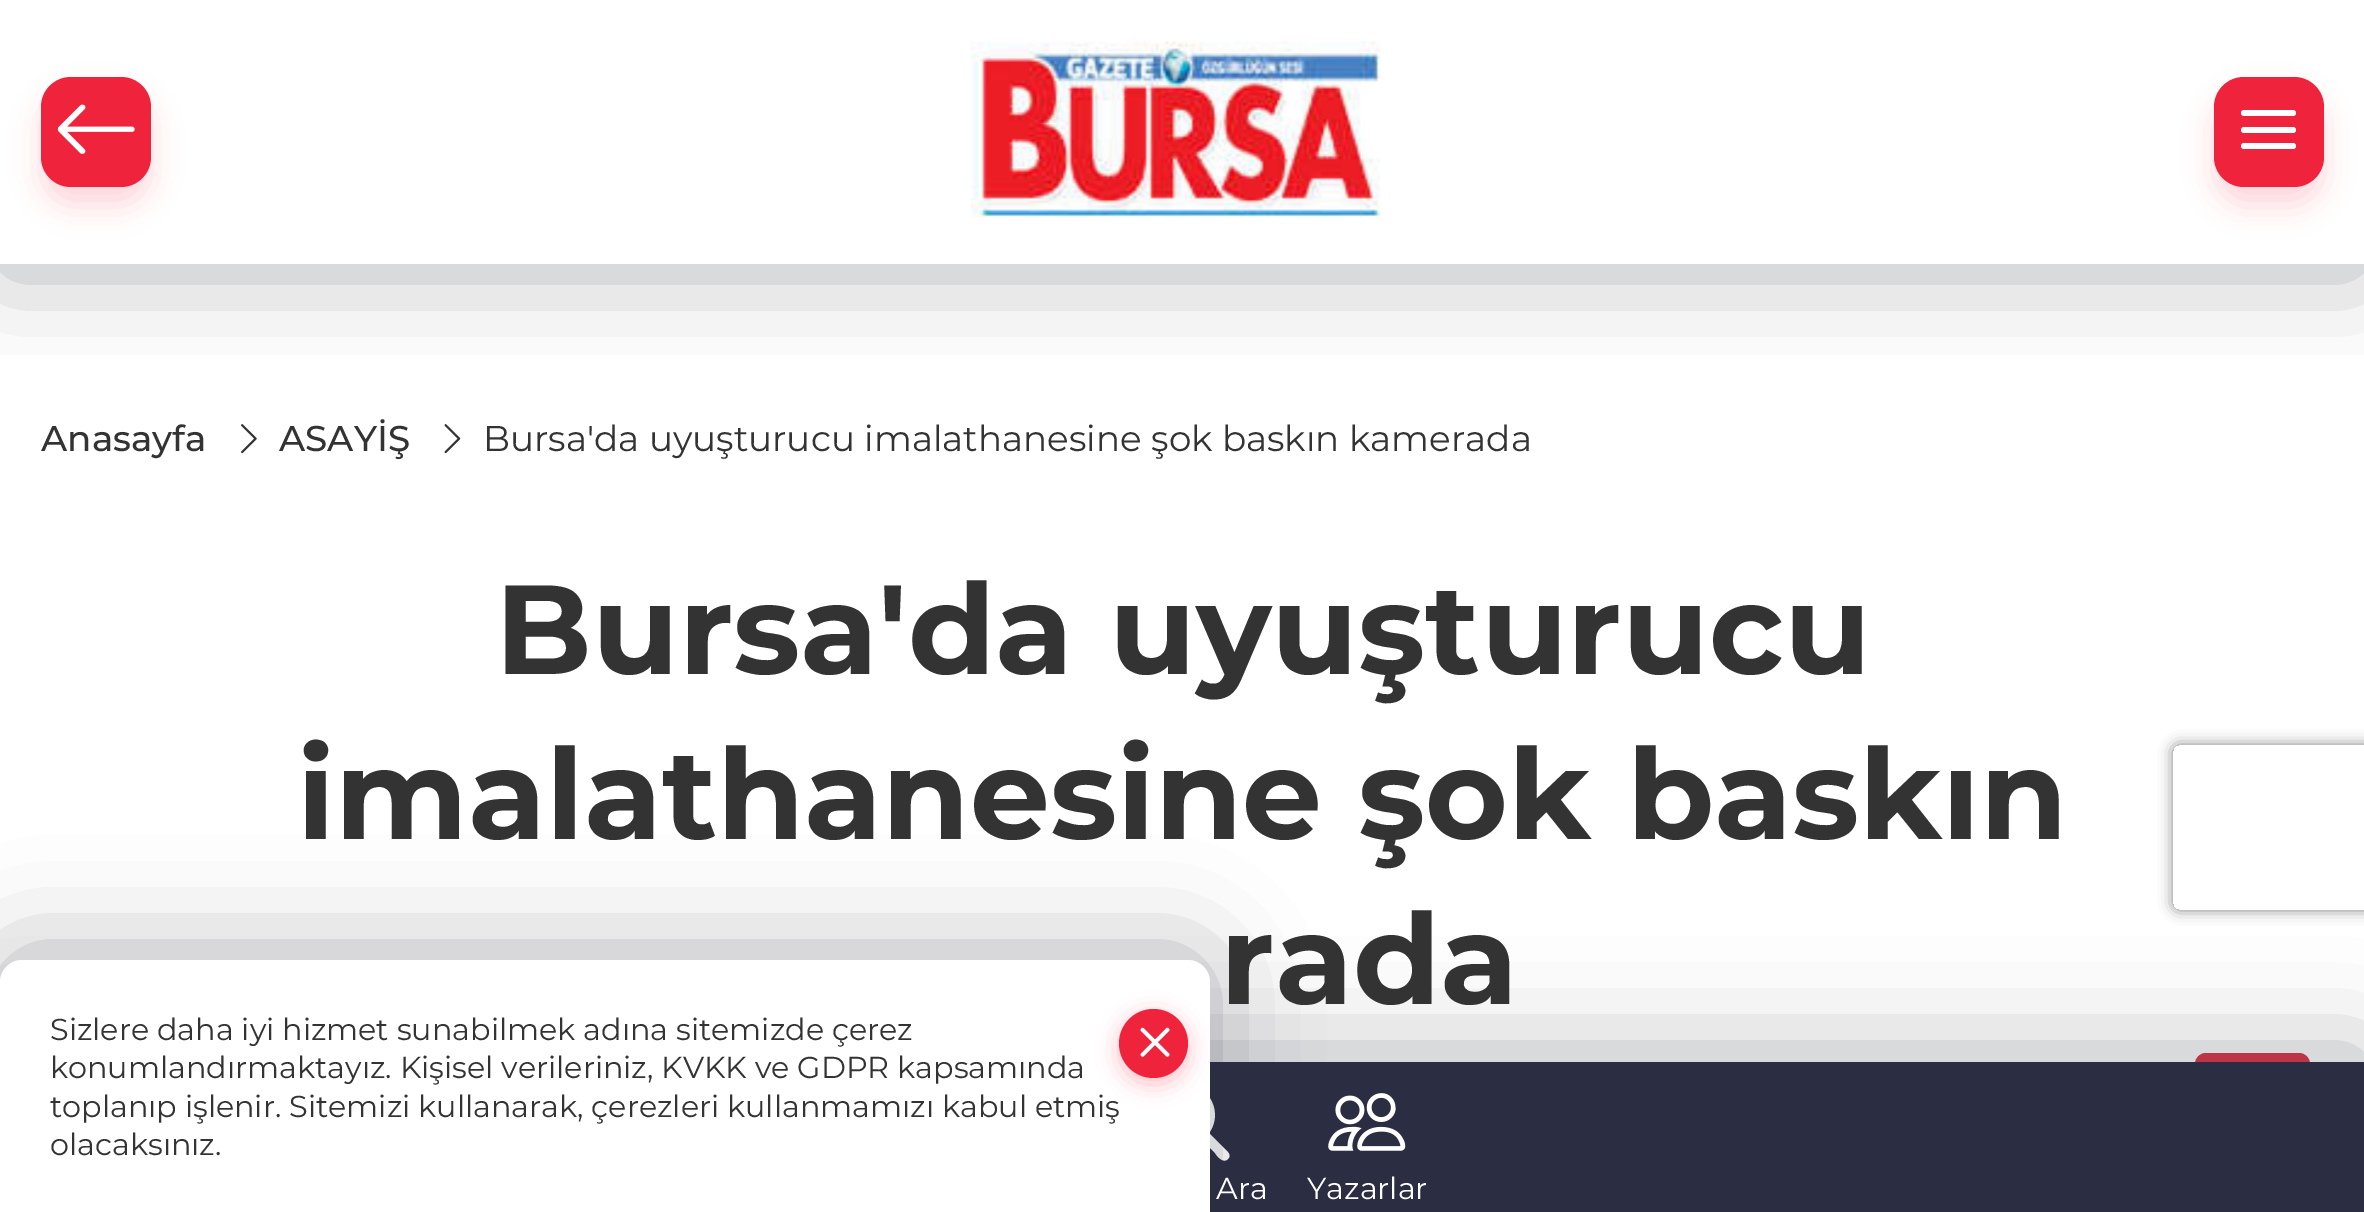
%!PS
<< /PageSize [2364 1212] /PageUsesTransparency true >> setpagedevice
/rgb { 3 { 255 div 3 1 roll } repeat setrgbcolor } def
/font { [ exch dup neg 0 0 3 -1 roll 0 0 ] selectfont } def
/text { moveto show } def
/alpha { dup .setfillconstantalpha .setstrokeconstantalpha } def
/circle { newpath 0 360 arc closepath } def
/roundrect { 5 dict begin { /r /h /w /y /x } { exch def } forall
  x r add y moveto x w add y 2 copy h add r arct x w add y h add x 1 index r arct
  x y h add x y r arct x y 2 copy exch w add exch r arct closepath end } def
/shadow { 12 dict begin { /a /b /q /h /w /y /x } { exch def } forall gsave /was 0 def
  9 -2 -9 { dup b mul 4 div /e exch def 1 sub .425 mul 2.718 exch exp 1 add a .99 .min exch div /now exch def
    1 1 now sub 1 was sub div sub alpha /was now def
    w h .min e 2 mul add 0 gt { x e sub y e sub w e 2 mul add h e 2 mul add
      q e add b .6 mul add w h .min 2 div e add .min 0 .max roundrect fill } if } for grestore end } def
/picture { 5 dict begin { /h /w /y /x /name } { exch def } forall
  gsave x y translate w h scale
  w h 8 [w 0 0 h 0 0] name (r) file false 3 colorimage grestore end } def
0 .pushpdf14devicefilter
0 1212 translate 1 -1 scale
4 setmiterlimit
255 255 255 rgb
0 0 2364 1212 rectfill
(img_03.rgb) 241 424 16 30 picture
(img_04.rgb) 444 424 17 30 picture
gsave
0 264 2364 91 rectclip
43 45 66 rgb
0 8 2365 264 0 52 0.36 shadow
grestore
239 35 60 rgb
41 96 110 110 30 15 0.18 shadow
41 77 110 110 30 roundrect fill
(img_01.rgb) 57 104 78 50 picture
(img_02.rgb) 970 41 411 177 picture
2214 96 110 110 30 15 0.18 shadow
2214 77 110 110 30 roundrect fill
255 255 255 rgb
2241 127 55 6 3 roundrect fill
2241 110 55 6 3 roundrect fill
2241 143 55 6 3 roundrect fill
220 53 69 rgb
2196.5 1054.5 112 102 9.5 roundrect gsave fill grestore
3 setlinewidth
stroke
43 45 66 rgb
0 1053 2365 152 0 52 0.36 shadow
1210 1062 1154 150 rectfill
255 255 255 rgb
1209 1133 moveto 11 -15 6 -36 -10 -45 rcurveto -9 -5 -19 -6 -28 -2 rcurveto -30 13 -22 58 11 60 rcurveto 7 0 14 -2 20 -6 rcurveto 13 13 rlineto 2 3 8 11 13 6 rcurveto 5 -5 -4 -10 -6 -13 rcurveto closepath 1210 1115 moveto 0 6 -2 11 -6 16 rcurveto -15 20 -47 9 -47 -16 rcurveto 0 -35 53 -35 53 0 rcurveto closepath fill
(img_05.rgb) 1328 1093 78 58 picture
gsave
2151 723 moveto 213 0 rlineto 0 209 rlineto -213 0 rlineto closepath 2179 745 moveto 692 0 rlineto 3.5 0 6 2.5 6 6 rcurveto 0 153 rlineto 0 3.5 -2.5 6 -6 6 rcurveto -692 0 rlineto -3.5 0 -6 -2.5 -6 -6 rcurveto 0 -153 rlineto 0 -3.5 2.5 -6 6 -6 rcurveto closepath eoclip newpath
128 128 128 rgb
2173 745 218 165 6 7 1 shadow
grestore
43 45 66 rgb
0 952 1210 253 22 52 0.36 shadow
255 255 255 rgb
22 960 moveto 1166 0 rlineto 12 0 22 10 22 22 rcurveto 0 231 rlineto -1210 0 rlineto 0 -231 rlineto 0 -12 10 -22 22 -22 rcurveto closepath fill
255 86 106 rgb
1119 1015 69 69 34.5 11 0.38 shadow
239 35 60 rgb
1153.5 1043.5 34.5 circle fill
(img_06.rgb) 1140 1027 30 30 picture
/Montserrat-Medium 35.75 font
51 51 51 rgb
(Anasayfa) 41 451 text
(ASAYİŞ) 279 451 text
/Montserrat-Regular 35.75 font
(Bursa'da uyuşturucu imalathanesine şok baskın kamerada) 483 451 text
/Montserrat-Bold 126.5 font
(Bursa'da uyuşturucu) 495 674 text
(imalathanesine şok baskın) 297 839 text
(rada) 1220 1004 text
/Montserrat-Regular 30.25 font
255 255 255 rgb
(Ara) 1216 1199 text
(Yazarlar) 1307 1199 text
51 51 51 rgb
(Sizlere daha iyi hizmet sunabilmek adına sitemizde çerez) 50 1040 text
(konumlandırmaktayız. Kişisel verileriniz, KVKK ve GDPR kapsamında) 50 1078 text
(toplanıp işlenir. Sitemizi kullanarak, çerezleri kullanmamızı kabul etmiş) 50 1117 text
(olacaksınız.) 50 1155 text
.poppdf14devicefilter showpage
